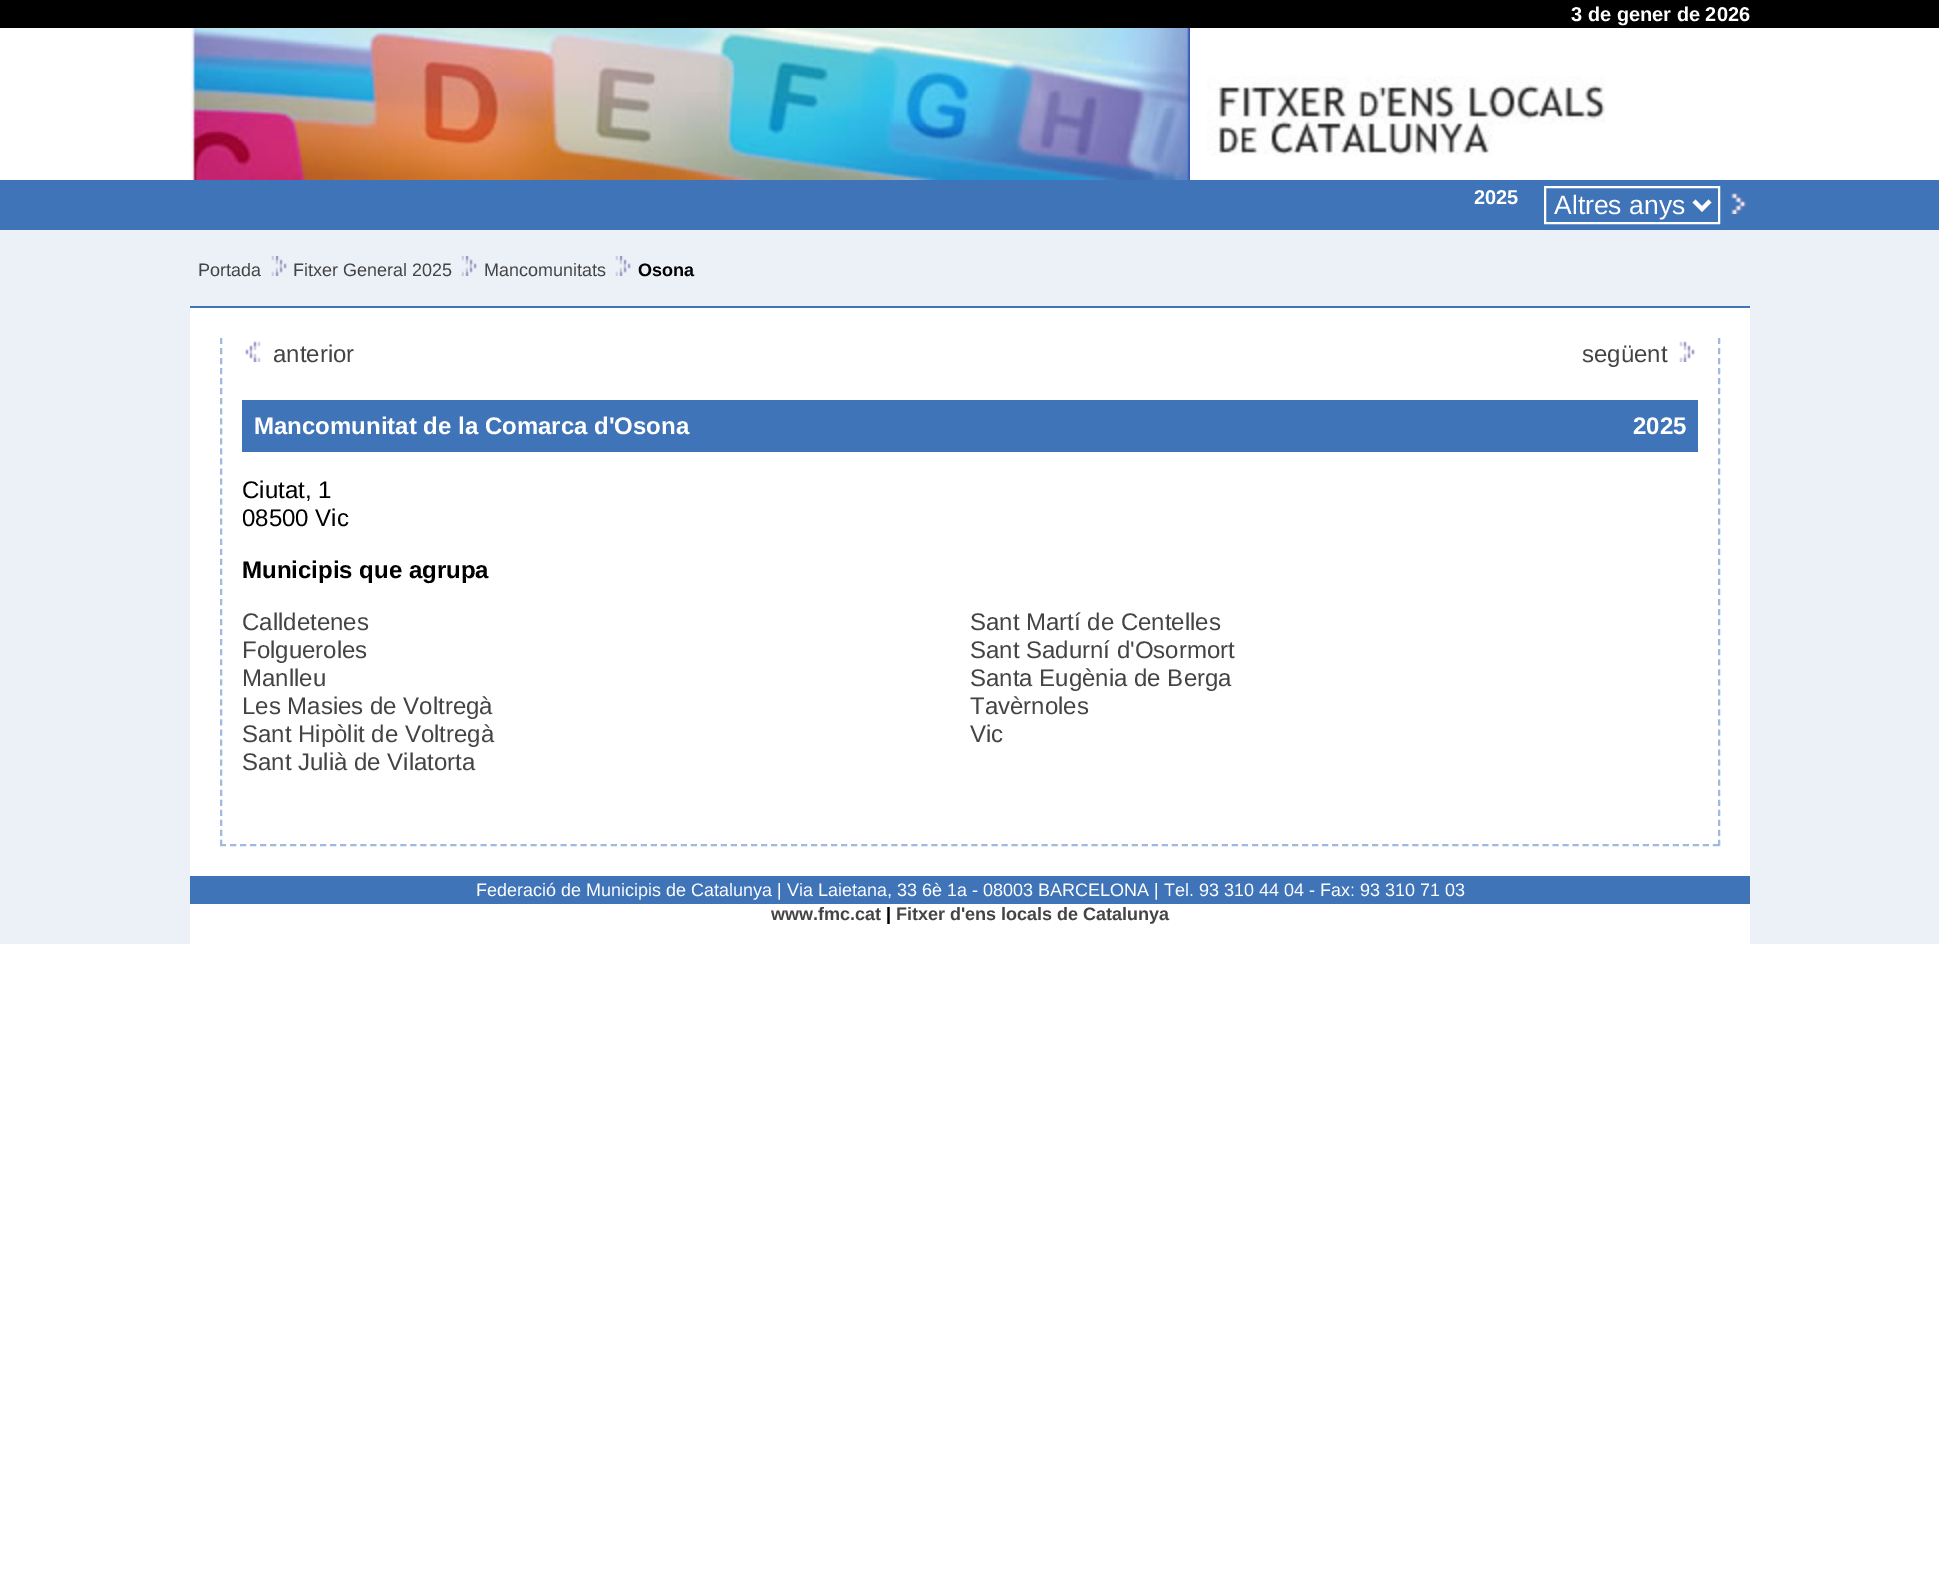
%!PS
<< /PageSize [1939 1580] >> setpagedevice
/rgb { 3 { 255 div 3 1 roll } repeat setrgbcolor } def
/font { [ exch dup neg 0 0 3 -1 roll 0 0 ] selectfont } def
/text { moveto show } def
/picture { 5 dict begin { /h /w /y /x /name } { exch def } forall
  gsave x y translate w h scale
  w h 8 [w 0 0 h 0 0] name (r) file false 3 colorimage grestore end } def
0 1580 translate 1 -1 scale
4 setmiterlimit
255 255 255 rgb
0 0 1939 1580 rectfill
0 0 0 rgb
0 0 1939 28 rectfill
(img_01.rgb) 190 28 1000 152 picture
(img_02.rgb) 1207 76 398 80 picture
63 116 185 rgb
0 180 1939 50 rectfill
255 255 255 rgb
2 setlinewidth
1545 187 174 36 rectstroke
4 setlinewidth
1694 201 moveto 8 8 rlineto 8 -8 rlineto stroke
(img_03.rgb) 1731 193 16 21 picture
236 241 248 rgb
0 230 1939 714 rectfill
63 116 185 rgb
190 306 1560 2 rectfill
(img_04.rgb) 271 256 16 20 picture
(img_04.rgb) 461 256 16 20 picture
(img_04.rgb) 615 256 16 20 picture
255 255 255 rgb
190 308 1560 568 rectfill
159 186 220 rgb
2 setlinewidth
[6 4.04] 0 setdash
1719 338 moveto 0 508 rlineto stroke
[6 4.02] 0 setdash
220 845 moveto 1500 0 rlineto stroke
[6 4.04] 0 setdash
221 338 moveto 0 508 rlineto stroke
(img_05.rgb) 245 341 16 21 picture
(img_06.rgb) 1679 341 16 21 picture
63 116 185 rgb
242 400 1456 52 rectfill
190 876 1560 28 rectfill
255 255 255 rgb
190 904 1560 40 rectfill
/LiberationSans-Bold 20 font
(3 de gener de 2026) 1571 21 text
(2025) 1474 204 text
/LiberationSans-Regular 26.5 font
(Altres anys) 1554 214 text
/LiberationSans-Regular 18 font
68 68 68 rgb
(Portada) 198 276 text
(Fitxer General 2025) 293 276 text
(Mancomunitats) 484 276 text
/LiberationSans-Bold 18 font
0 0 0 rgb
(Osona) 638 276 text
/LiberationSans-Regular 24 font
68 68 68 rgb
(anterior) 273 362 text
(següent) 1582 362 text
/LiberationSans-Bold 24 font
255 255 255 rgb
(Mancomunitat de la Comarca d'Osona) 254 434 text
(2025) 1633 434 text
/LiberationSans-Regular 24 font
0 0 0 rgb
(Ciutat, 1) 242 498 text
(08500 Vic) 242 526 text
/LiberationSans-Bold 24 font
(Municipis que agrupa) 242 578 text
/LiberationSans-Regular 24 font
68 68 68 rgb
(Calldetenes) 242 630 text
(Folgueroles) 242 658 text
(Manlleu) 242 686 text
(Les Masies de Voltregà) 242 714 text
(Sant Hipòlit de Voltregà) 242 742 text
(Sant Julià de Vilatorta) 242 770 text
(Sant Martí de Centelles) 970 630 text
(Sant Sadurní d'Osormort) 970 658 text
(Santa Eugènia de Berga) 970 686 text
(Tavèrnoles) 970 714 text
(Vic) 970 742 text
/LiberationSans-Regular 18 font
255 255 255 rgb
(Federació de Municipis de Catalunya | Via Laietana, 33 6è 1a - 08003 BARCELONA | Tel. 93 310 44 04 - Fax: 93 310 71 03) 476 896 text
/LiberationSans-Bold 18 font
68 68 68 rgb
(www.fmc.cat) 771 920 text
0 0 0 rgb
(|) 886 920 text
68 68 68 rgb
(Fitxer d'ens locals de Catalunya) 896 920 text
showpage
